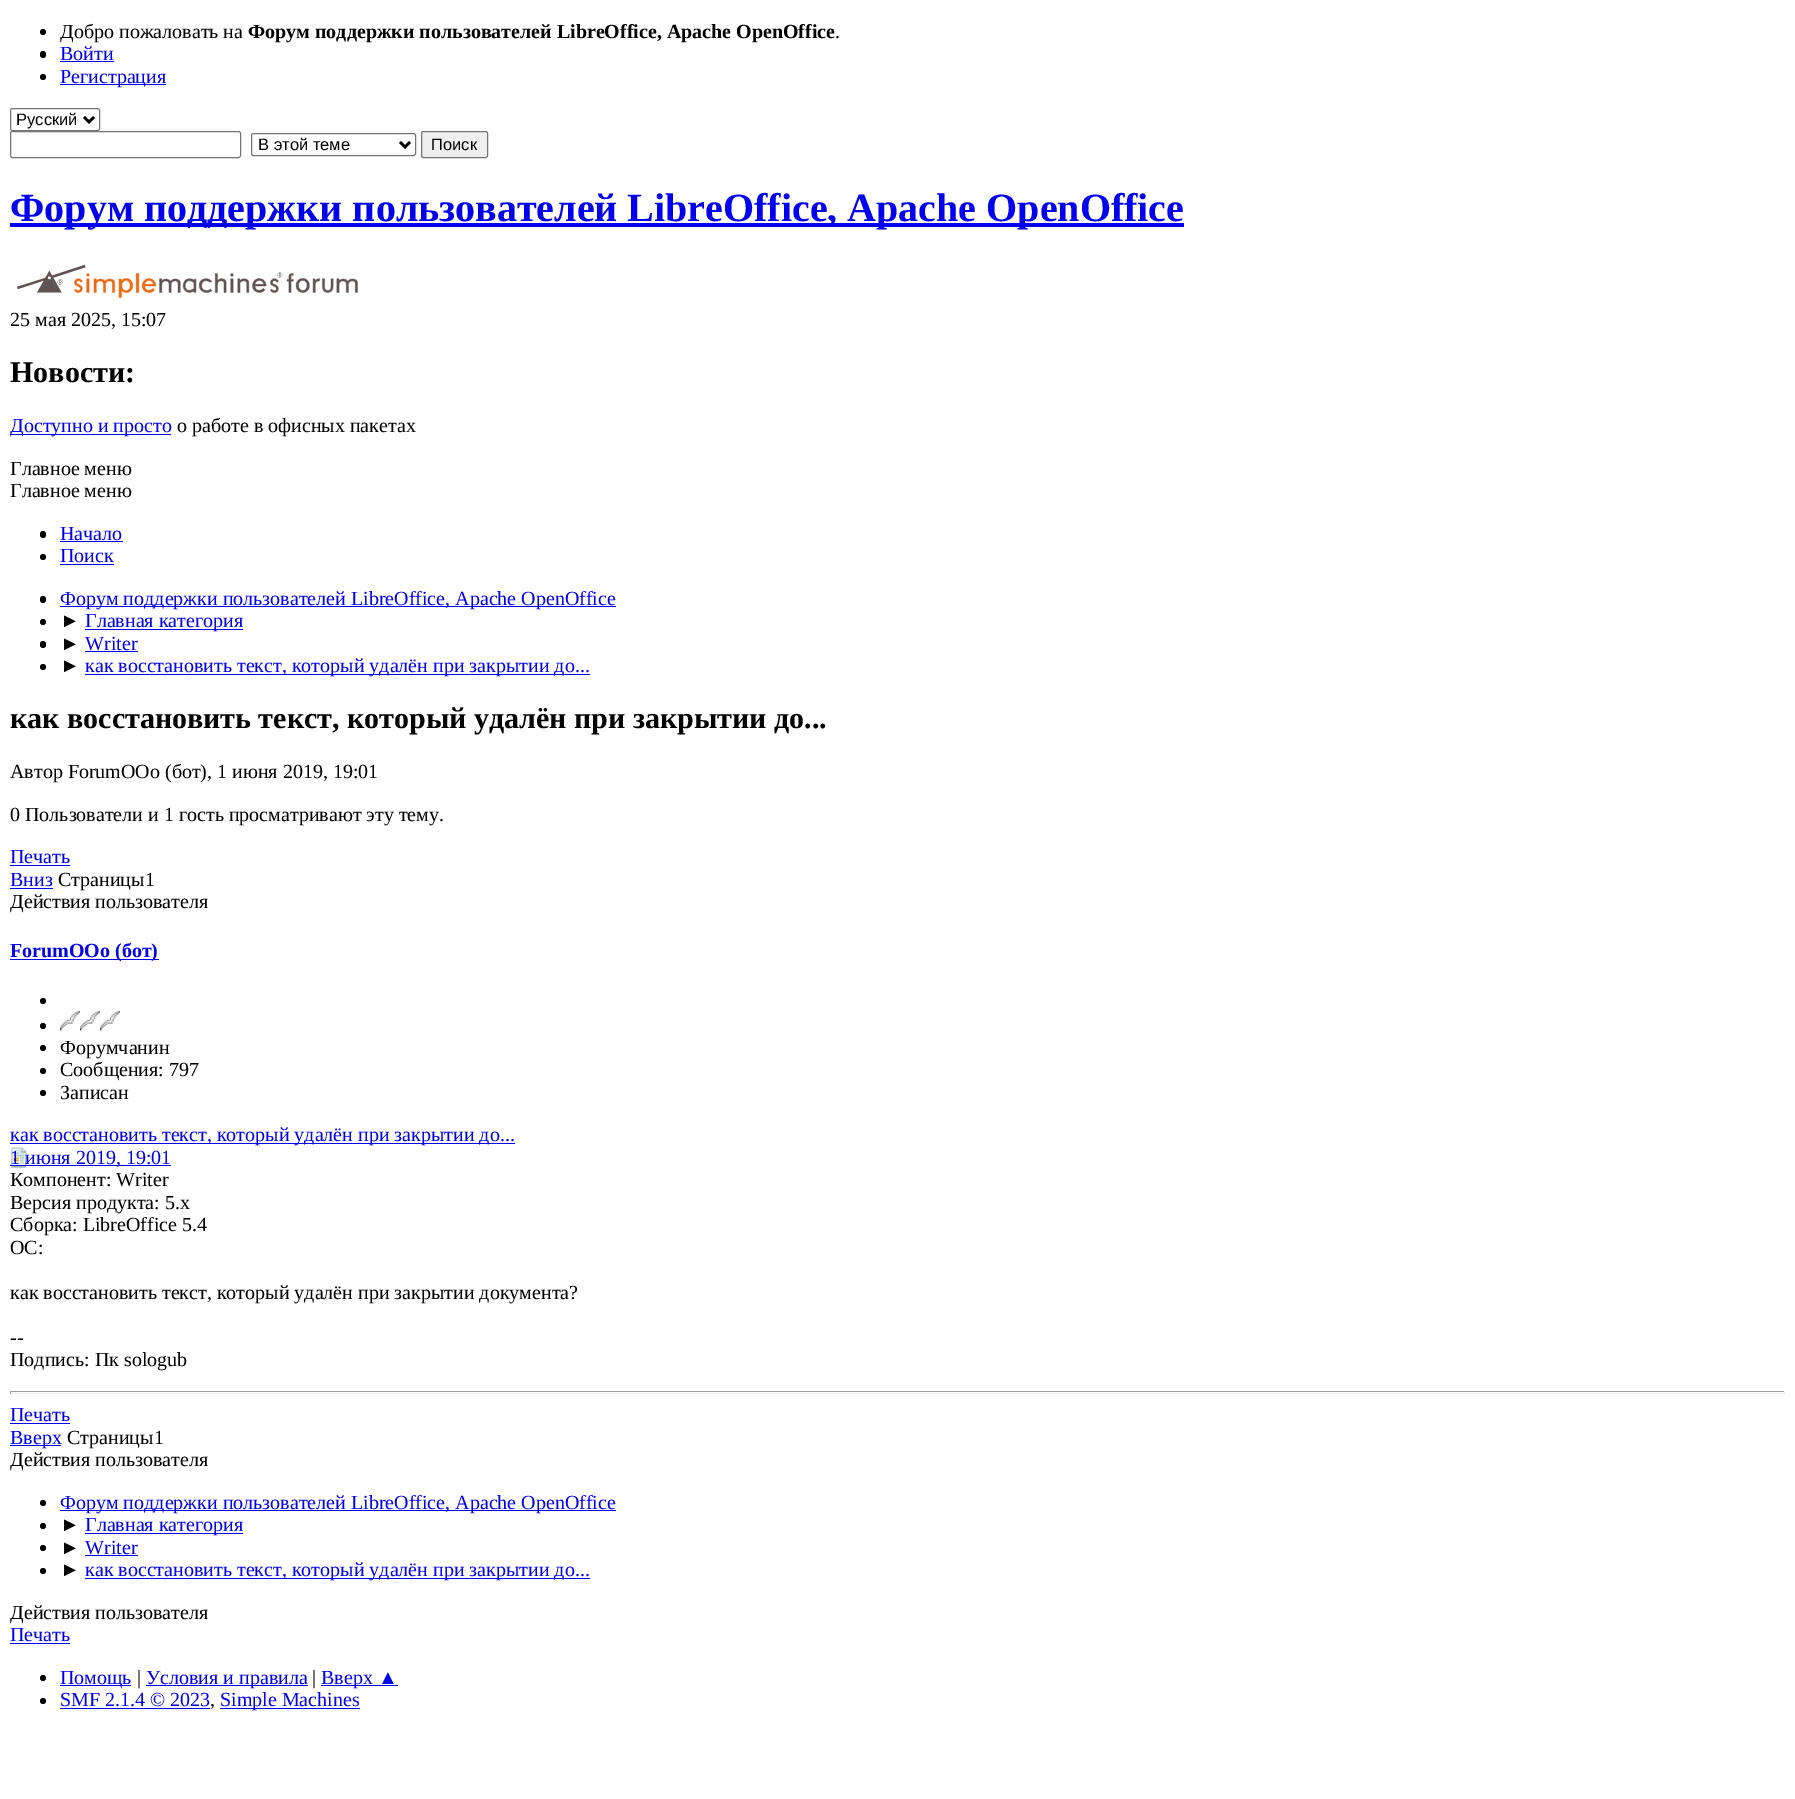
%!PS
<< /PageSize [1795 1799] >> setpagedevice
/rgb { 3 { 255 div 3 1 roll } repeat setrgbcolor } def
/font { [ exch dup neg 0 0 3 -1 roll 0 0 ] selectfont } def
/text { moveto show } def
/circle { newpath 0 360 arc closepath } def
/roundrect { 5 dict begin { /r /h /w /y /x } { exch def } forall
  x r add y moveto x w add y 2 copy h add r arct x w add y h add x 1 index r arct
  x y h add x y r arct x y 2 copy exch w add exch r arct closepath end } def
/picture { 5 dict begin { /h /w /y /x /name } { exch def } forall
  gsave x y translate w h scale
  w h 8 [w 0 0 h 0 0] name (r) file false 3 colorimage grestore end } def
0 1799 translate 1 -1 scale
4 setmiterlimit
255 255 255 rgb
0 0 1795 1799 rectfill
0 0 0 rgb
43 32 3 circle fill
40 51 6 7 3 roundrect fill
0 0 238 rgb
60 61 54 1 rectfill
0 0 0 rgb
43 77 3 circle fill
0 0 238 rgb
60 84 106 1 rectfill
118 118 118 rgb
10.5 108.5 89 22 2 roundrect stroke
0 0 0 rgb
2.5 setlinewidth
84 117 moveto 5 5 rlineto 5 -5 rlineto stroke
118 118 118 rgb
1 setlinewidth
10.5 131.5 230 26 2 roundrect stroke
251.5 133.5 164 22 2 roundrect stroke
0 0 0 rgb
2.5 setlinewidth
400 142 moveto 5 5 rlineto 5 -5 rlineto stroke
239 239 239 rgb
421.5 131.5 66 26 2 roundrect gsave fill grestore
118 118 118 rgb
1 setlinewidth
stroke
0 0 238 rgb
10 223 1174 4 rectfill
(img_01.rgb) 17 264 341 34 picture
10 434 161 1 rectfill
0 0 0 rgb
40 531 6 7 3 roundrect fill
0 0 238 rgb
60 541 63 1 rectfill
0 0 0 rgb
43 557 3 circle fill
0 0 238 rgb
60 564 54 1 rectfill
0 0 0 rgb
40 596 6 7 3 roundrect fill
0 0 238 rgb
60 606 556 1 rectfill
0 0 0 rgb
43 622 3 circle fill
0 0 238 rgb
85 629 158 1 rectfill
0 0 0 rgb
40 641 6 7 3 roundrect fill
0 0 238 rgb
85 651 53 1 rectfill
0 0 0 rgb
43 667 3 circle fill
0 0 238 rgb
85 674 505 1 rectfill
10 865 60 1 rectfill
10 888 43 1 rectfill
10 959 149 1 rectfill
0 0 0 rgb
43 1001 3 circle fill
43 1026 3 circle fill
(img_02.rgb) 60 1011 20 21 picture
(img_02.rgb) 80 1011 20 21 picture
(img_02.rgb) 100 1011 20 21 picture
43 1048 3 circle fill
43 1071 3 circle fill
43 1093 3 circle fill
0 0 238 rgb
10 1143 505 1 rectfill
(img_03.rgb) 11 1147 16 21 picture
10 1165 161 1 rectfill
159 159 159 rgb
10 1391 1775 1 rectfill
238 238 238 rgb
1784 1391 1 3 rectfill
10 1393 1775 1 rectfill
159 159 159 rgb
10 1391 1 3 rectfill
0 0 238 rgb
10 1423 60 1 rectfill
10 1445 51 1 rectfill
0 0 0 rgb
43 1503 3 circle fill
0 0 238 rgb
60 1510 556 1 rectfill
0 0 0 rgb
43 1526 3 circle fill
0 0 238 rgb
85 1533 158 1 rectfill
0 0 0 rgb
43 1548 3 circle fill
0 0 238 rgb
85 1555 53 1 rectfill
0 0 0 rgb
43 1571 3 circle fill
0 0 238 rgb
85 1578 505 1 rectfill
10 1643 60 1 rectfill
0 0 0 rgb
43 1678 3 circle fill
0 0 238 rgb
60 1685 71 1 rectfill
146 1685 162 1 rectfill
321 1685 77 1 rectfill
0 0 0 rgb
43 1701 3 circle fill
0 0 238 rgb
60 1708 150 1 rectfill
220 1708 140 1 rectfill
/LiberationSerif-Regular 20 font
0 0 0 rgb
(Добро пожаловать на) 60 38 text
/LiberationSerif-Bold 20 font
(Форум поддержки пользователей LibreOffice, Apache OpenOffice) 248 38 text
/LiberationSerif-Regular 20 font
(.) 835 38 text
0 0 238 rgb
(Войти) 60 60 text
(Регистрация) 60 83 text
/LiberationSans-Regular 16.5 font
0 0 0 rgb
(Русский) 16 125 text
(В этой теме) 258 150 text
(Поиск) 431 150 text
/LiberationSerif-Bold 40 font
0 0 238 rgb
(Форум поддержки пользователей LibreOffice, Apache OpenOffice) 10 221 text
/LiberationSerif-Regular 20 font
0 0 0 rgb
(25 мая 2025, 15:07) 10 326 text
/LiberationSerif-Bold 30 font
(Новости:) 10 382 text
/LiberationSerif-Regular 20 font
0 0 238 rgb
(Доступно и просто) 10 432 text
0 0 0 rgb
(о работе в офисных пакетах) 177 432 text
(Главное меню) 10 475 text
(Главное меню) 10 497 text
0 0 238 rgb
(Начало) 60 540 text
(Поиск) 60 562 text
(Форум поддержки пользователей LibreOffice, Apache OpenOffice) 60 605 text
0 0 0 rgb
(►) 60 627 text
0 0 238 rgb
(Главная категория) 85 627 text
0 0 0 rgb
(►) 60 650 text
0 0 238 rgb
(Writer) 85 650 text
0 0 0 rgb
(►) 60 672 text
0 0 238 rgb
(как восстановить текст, который удалён при закрытии до...) 85 672 text
/LiberationSerif-Bold 30 font
0 0 0 rgb
(как восстановить текст, который удалён при закрытии до...) 10 728 text
/LiberationSerif-Regular 20 font
(Автор ForumOOo \(бот\), 1 июня 2019, 19:01) 10 778 text
(0 Пользователи и 1 гость просматривают эту тему.) 10 821 text
0 0 238 rgb
(Печать) 10 863 text
(Вниз) 10 886 text
0 0 0 rgb
(Страницы1) 58 886 text
(Действия пользователя) 10 908 text
/LiberationSerif-Bold 20 font
0 0 238 rgb
(ForumOOo \(бот\)) 10 957 text
/LiberationSerif-Regular 20 font
0 0 0 rgb
(Форумчанин) 60 1054 text
(Сообщения: 797) 60 1076 text
(Записан) 60 1099 text
0 0 238 rgb
(как восстановить текст, который удалён при закрытии до...) 10 1141 text
(1 июня 2019, 19:01) 10 1164 text
0 0 0 rgb
(Компонент: Writer) 10 1186 text
(Версия продукта: 5.x) 10 1209 text
(Сборка: LibreOffice 5.4) 10 1231 text
(ОС:) 10 1254 text
(как восстановить текст, который удалён при закрытии документа?) 10 1299 text
(--) 10 1344 text
(Подпись: Пк sologub) 10 1366 text
0 0 238 rgb
(Печать) 10 1421 text
(Вверх) 10 1444 text
0 0 0 rgb
(Страницы1) 67 1444 text
(Действия пользователя) 10 1466 text
0 0 238 rgb
(Форум поддержки пользователей LibreOffice, Apache OpenOffice) 60 1509 text
0 0 0 rgb
(►) 60 1531 text
0 0 238 rgb
(Главная категория) 85 1531 text
0 0 0 rgb
(►) 60 1554 text
0 0 238 rgb
(Writer) 85 1554 text
0 0 0 rgb
(►) 60 1576 text
0 0 238 rgb
(как восстановить текст, который удалён при закрытии до...) 85 1576 text
0 0 0 rgb
(Действия пользователя) 10 1619 text
0 0 238 rgb
(Печать) 10 1641 text
(Помощь) 60 1684 text
0 0 0 rgb
(|) 137 1684 text
0 0 238 rgb
(Условия и правила) 146 1684 text
0 0 0 rgb
(|) 312 1684 text
0 0 238 rgb
(Вверх ▲) 321 1684 text
(SMF 2.1.4 © 2023) 60 1706 text
(Simple Machines) 220 1706 text
0 0 0 rgb
(,) 210 1706 text
showpage
